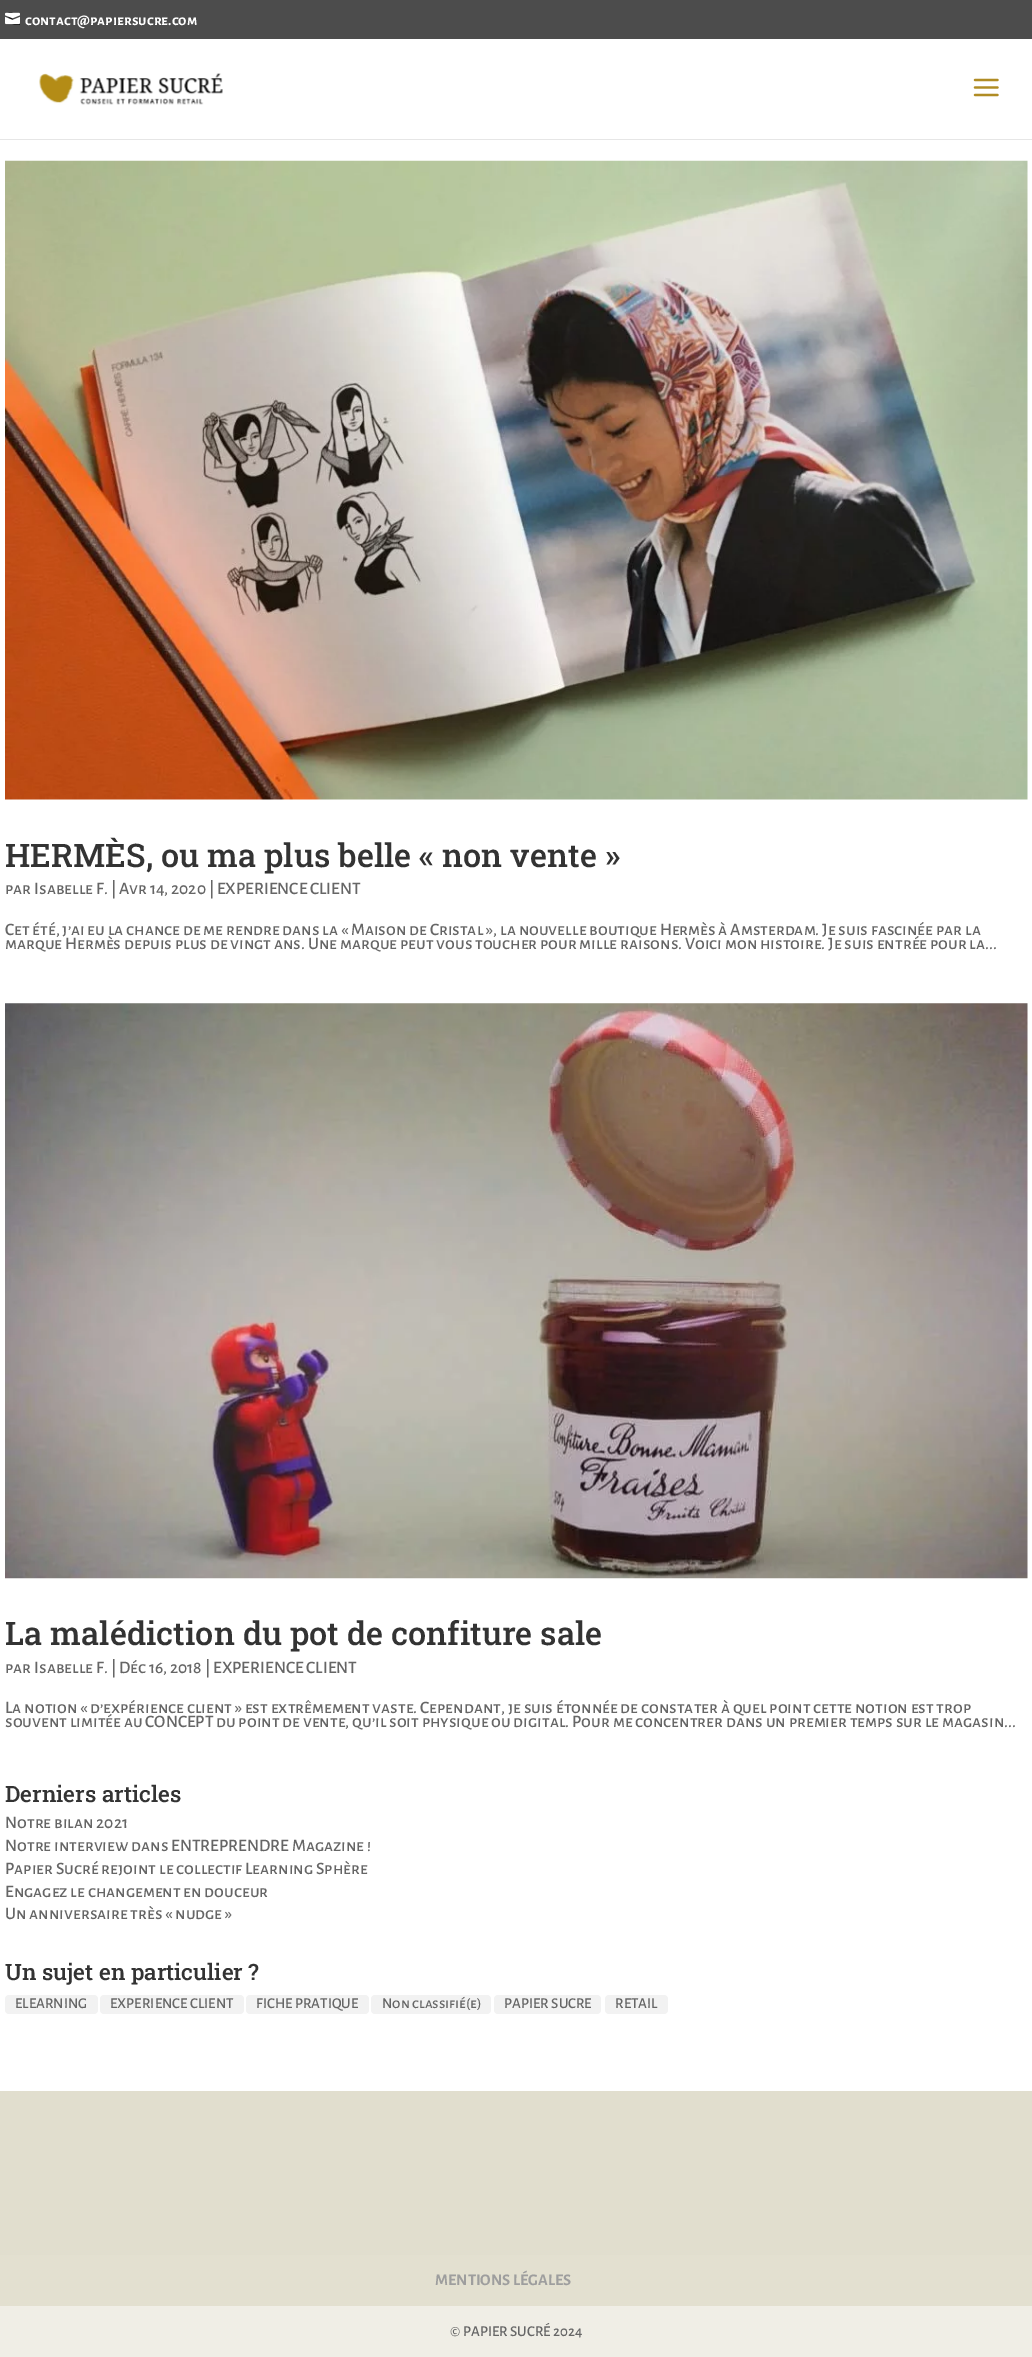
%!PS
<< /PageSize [1032 2357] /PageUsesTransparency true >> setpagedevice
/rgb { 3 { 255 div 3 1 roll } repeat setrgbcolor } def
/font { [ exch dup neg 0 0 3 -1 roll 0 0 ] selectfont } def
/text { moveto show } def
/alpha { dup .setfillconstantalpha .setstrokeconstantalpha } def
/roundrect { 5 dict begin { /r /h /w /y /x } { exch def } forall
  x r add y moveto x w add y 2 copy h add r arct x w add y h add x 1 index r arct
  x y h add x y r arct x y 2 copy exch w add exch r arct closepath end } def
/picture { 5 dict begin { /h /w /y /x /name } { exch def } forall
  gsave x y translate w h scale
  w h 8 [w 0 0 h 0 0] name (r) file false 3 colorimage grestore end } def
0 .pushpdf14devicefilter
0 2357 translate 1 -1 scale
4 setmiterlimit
255 255 255 rgb
0 0 1032 2357 rectfill
0.73 alpha
10 10 10 rgb
0 0 1032 39 rectfill
1 alpha
(img_01.rgb) 5 12 15 13 picture
230 230 230 rgb
0 139 moveto 0 1 rlineto 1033 0 rlineto 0 -100 rlineto -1 0 rlineto 0 99 rlineto closepath fill
(img_02.rgb) 39 73 184 32 picture
(img_03.rgb) 973 78 26 19 picture
(img_04.rgb) 5 160 1023 640 picture
(img_05.rgb) 5 1003 1023 576 picture
242 242 242 rgb
5 1995 93 19 4 roundrect fill
100 1995 144 19 4 roundrect fill
246 1995 123 19 4 roundrect fill
371 1995 120 19 4 roundrect fill
494 1995 107 19 4 roundrect fill
605 1995 63 19 4 roundrect fill
225 222 206 rgb
0 2091 1032 164 rectfill
227 224 208 rgb
0 2255 1032 51 rectfill
240 238 230 rgb
0 2306 1032 51 rectfill
/AlegreyaSansSC-Bold 15 font
255 255 255 rgb
(contact@papiersucre.com) 25 25 text
/RobotoSlab-Medium 32.5 font
51 51 51 rgb
(HERMÈS, ou ma plus belle « non vente ») 5 867 text
/AlegreyaSansSC-Medium 17.5 font
102 102 102 rgb
(par Isabelle F. | Avr 14, 2020 | EXPERIENCE CLIENT) 5 894 text
(Cet été, j’ai eu la chance de me rendre dans la « Maison de Cristal », la nouvelle boutique Hermès à Amsterdam. Je suis fascinée par la) 5 935 text
(marque Hermès depuis plus de vingt ans. Une marque peut vous toucher pour mille raisons. Voici mon histoire. Je suis entrée pour la...) 5 949 text
/RobotoSlab-Medium 32.5 font
51 51 51 rgb
(La malédiction du pot de confiture sale) 5 1645 text
/AlegreyaSansSC-Medium 17.5 font
102 102 102 rgb
(par Isabelle F. | Déc 16, 2018 | EXPERIENCE CLIENT) 5 1673 text
(La notion « d’expérience client » est extrêmement vaste. Cependant, je suis étonnée de constater à quel point cette notion est trop) 5 1713 text
(souvent limitée au CONCEPT du point de vente, qu’il soit physique ou digital. Pour me concentrer dans un premier temps sur le magasin...) 5 1727 text
/RobotoSlab-Medium 22.5 font
51 51 51 rgb
(Derniers articles) 5 1802 text
/AlegreyaSansSC-Medium 17.5 font
102 102 102 rgb
(Notre bilan 2021) 5 1828 text
(Notre interview dans ENTREPRENDRE Magazine !) 5 1851 text
(Papier Sucré rejoint le collectif Learning Sphère) 5 1874 text
(Engagez le changement en douceur) 5 1897 text
(Un anniversaire très « nudge ») 5 1919 text
/RobotoSlab-Medium 22.5 font
51 51 51 rgb
(Un sujet en particulier ?) 5 1980 text
/AlegreyaSansSC-Medium 15 font
102 102 102 rgb
(ELEARNING) 15 2008 text
(EXPERIENCE CLIENT) 110 2008 text
(FICHE PRATIQUE) 256 2008 text
(Non classifié\(e\)) 382 2008 text
(PAPIER SUCRE) 504 2008 text
(RETAIL) 615 2008 text
/AlegreyaSansSC-Bold 16.25 font
158 158 158 rgb
(MENTIONS LÉGALES) 435 2285 text
/AlegreyaSansSC-Medium 15 font
102 102 102 rgb
(© PAPIER SUCRÉ 2024) 450 2336 text
.poppdf14devicefilter showpage
